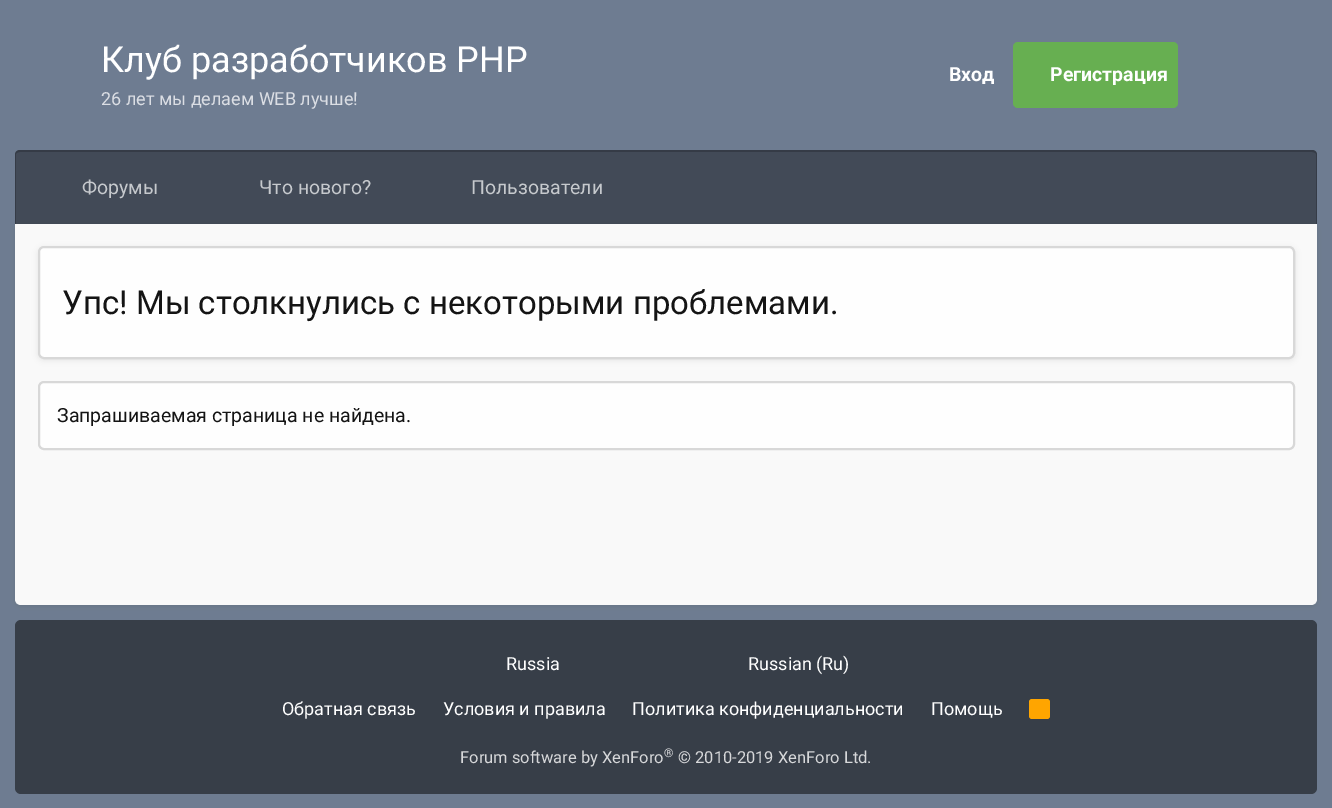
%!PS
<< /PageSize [1332 808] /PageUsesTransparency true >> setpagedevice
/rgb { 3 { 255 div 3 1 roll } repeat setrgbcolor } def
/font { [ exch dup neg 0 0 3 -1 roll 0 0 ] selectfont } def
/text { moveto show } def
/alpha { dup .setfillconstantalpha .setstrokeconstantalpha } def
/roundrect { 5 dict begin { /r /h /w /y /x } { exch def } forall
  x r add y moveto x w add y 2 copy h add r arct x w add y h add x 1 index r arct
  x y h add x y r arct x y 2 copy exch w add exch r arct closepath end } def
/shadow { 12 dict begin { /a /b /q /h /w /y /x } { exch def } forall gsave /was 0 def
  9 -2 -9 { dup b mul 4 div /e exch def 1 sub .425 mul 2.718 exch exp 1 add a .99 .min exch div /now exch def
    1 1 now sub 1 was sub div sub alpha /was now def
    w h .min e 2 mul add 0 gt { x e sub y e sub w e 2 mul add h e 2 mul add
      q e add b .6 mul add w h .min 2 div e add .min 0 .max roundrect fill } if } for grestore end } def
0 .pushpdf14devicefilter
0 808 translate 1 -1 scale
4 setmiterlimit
110 124 145 rgb
0 0 1332 808 rectfill
103 175 81 rgb
1013 42 165 66 5 roundrect fill
0 0 0 rgb
15 225 1302 381 6 2 0.08 shadow
0.4 alpha
20 150 moveto 1292 0 rlineto 3 0 5 2 5 5 rcurveto 0 69 rlineto -1302 0 rlineto 0 -69 rlineto 0 -3 2 -5 5 -5 rcurveto closepath fill
0.2 alpha
20 150 moveto 1292 0 rlineto 3 0 5 2 5 4 rcurveto 0 70 rlineto -1302 0 rlineto 0 -70 rlineto 0 -2 2 -4 5 -4 rcurveto closepath 20 152 moveto 1292 0 rlineto 2 0 4 1 4 2 rcurveto 0 70 rlineto -1300 0 rlineto 0 -70 rlineto 0 -1 2 -2 4 -2 rcurveto closepath eofill
1 alpha
249 249 249 rgb
15 224 moveto 1302 0 rlineto 0 375 rlineto 0 3.5 -2.5 6 -6 6 rcurveto -1290 0 rlineto -3.5 0 -6 -2.5 -6 -6 rcurveto closepath fill
0 0 0 rgb
38 248 1257 112 6 3 0.08 shadow
254 254 254 rgb
38 246 1257 113 6 roundrect fill
0.15 alpha
0 0 0 rgb
2 setlinewidth
39 247 1255 111 5 roundrect stroke
1 alpha
254 254 254 rgb
39 382 1255 67 5 roundrect gsave fill grestore
216 216 216 rgb
stroke
55 62 72 rgb
15 620 1302 174 6 roundrect fill
255 165 0 rgb
1029 699 21 20 3 roundrect fill
/Roboto-Regular 36 font
255 255 255 rgb
(Клуб разработчиков PHP) 101 72 text
/Roboto-Regular 18 font
219 222 228 rgb
(26 лет мы делаем WEB лучше!) 101 105 text
/Roboto-Bold 19.5 font
255 255 255 rgb
(Вход) 949 81 text
(Регистрация) 1050 81 text
/Roboto-Regular 19.5 font
198 201 205 rgb
(Форумы) 82 194 text
(Что нового?) 259 194 text
(Пользователи) 471 194 text
/Roboto-Regular 33 font
20 20 20 rgb
(Упс! Мы столкнулись с некоторыми проблемами.) 62 314 text
/Roboto-Regular 19.5 font
(Запрашиваемая страница не найдена.) 57 422 text
/Roboto-Regular 18 font
255 255 255 rgb
(Russia) 506 670 text
(Russian \(Ru\)) 748 670 text
(Обратная связь) 282 715 text
(Условия и правила) 443 715 text
(Политика конфиденциальности) 632 715 text
(Помощь) 931 715 text
/Roboto-Regular 16.5 font
215 216 218 rgb
(Forum software by XenForo) 460 763 text
/Roboto-Regular 12 font
(®) 664 757 text
/Roboto-Regular 16.5 font
(© 2010-2019 XenForo Ltd.) 678 763 text
.poppdf14devicefilter showpage
